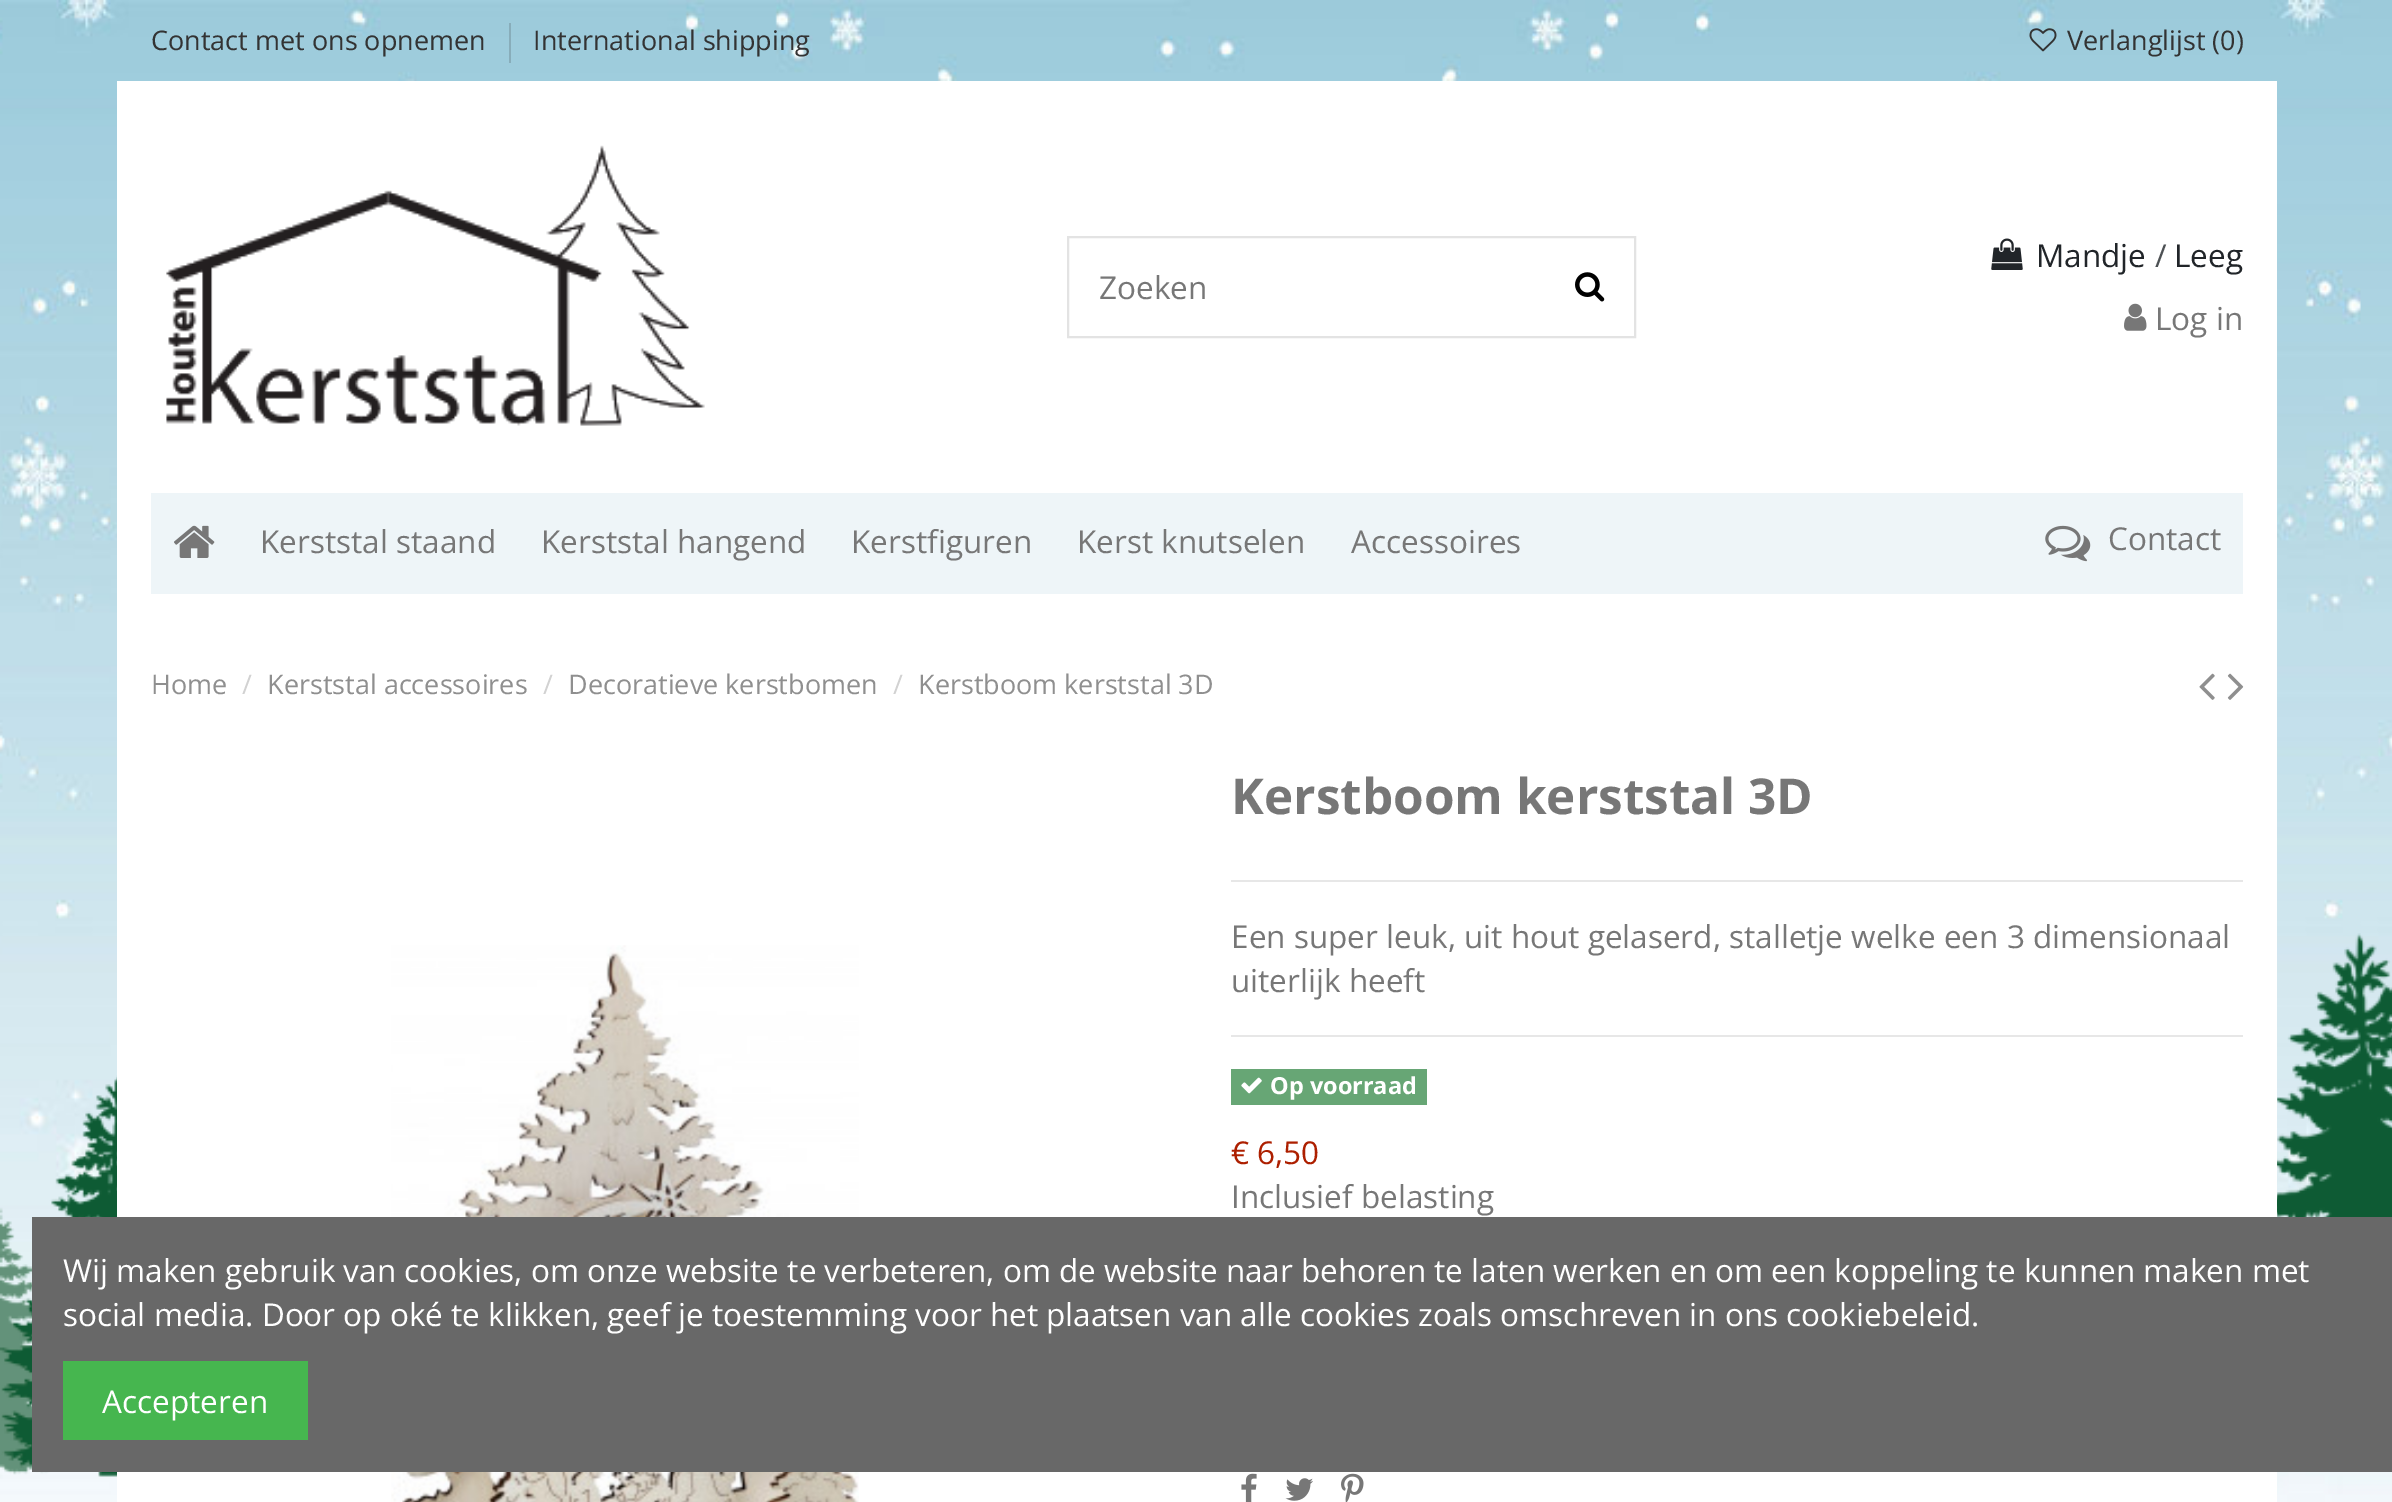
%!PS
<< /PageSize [2392 1502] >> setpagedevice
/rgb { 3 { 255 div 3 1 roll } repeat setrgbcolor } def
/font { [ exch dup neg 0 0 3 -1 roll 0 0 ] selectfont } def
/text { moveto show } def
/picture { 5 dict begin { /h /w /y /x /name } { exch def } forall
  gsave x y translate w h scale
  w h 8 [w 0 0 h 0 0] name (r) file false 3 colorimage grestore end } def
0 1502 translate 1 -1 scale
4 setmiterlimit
255 255 255 rgb
0 0 2392 1502 rectfill
(img_01.rgb) 0 0 2392 1502 picture
(img_02.rgb) 117 0 2160 81 picture
136 173 186 rgb
509 23 2 40 rectfill
(img_03.rgb) 2029 28 28 24 picture
255 255 255 rgb
117 81 2160 1421 rectfill
(img_04.rgb) 166 145 539 281 picture
227 227 227 rgb
2 setlinewidth
1068 237 567 100 rectstroke
(img_05.rgb) 1575 272 30 30 picture
(img_06.rgb) 1991 238 32 32 picture
(img_07.rgb) 2124 303 23 28 picture
238 245 248 rgb
151 493 2092 101 rectfill
(img_08.rgb) 174 525 41 33 picture
(img_09.rgb) 2045 525 46 37 picture
(img_10.rgb) 2199 673 16 27 picture
(img_11.rgb) 2227 673 17 27 picture
(img_12.rgb) 391 945 468 557 picture
231 231 231 rgb
1231 880 1012 2 rectfill
1231 1035 1012 2 rectfill
103 166 117 rgb
1231 1069 196 36 rectfill
(img_13.rgb) 1241 1077 21 17 picture
(img_14.rgb) 1241 1473 16 29 picture
(img_15.rgb) 1285 1478 28 23 picture
(img_16.rgb) 1341 1473 23 29 picture
104 104 104 rgb
32 1217 2360 255 rectfill
70 182 79 rgb
63 1361 245 79 rectfill
/OpenSans-Regular 27 font
51 51 51 rgb
(Contact met ons opnemen) 151 50 text
(International shipping) 533 50 text
(Verlanglijst \(0\)) 2067 50 text
/OpenSans-Regular 31.5 font
119 119 119 rgb
(Zoeken) 1099 299 text
33 37 41 rgb
(Mandje) 2036 267 text
77 81 84 rgb
(/) 2155 267 text
33 37 41 rgb
(Leeg) 2174 267 text
119 119 119 rgb
(Log in) 2155 330 text
(Kerststal staand) 260 553 text
(Kerststal hangend) 541 553 text
(Kerstfiguren) 851 553 text
(Kerst knutselen) 1077 553 text
(Accessoires) 1351 553 text
(Contact) 2108 550 text
/OpenSans-Regular 27 font
143 143 143 rgb
(Home) 151 694 text
210 210 210 rgb
(/) 242 694 text
143 143 143 rgb
(Kerststal accessoires) 267 694 text
210 210 210 rgb
(/) 543 694 text
143 143 143 rgb
(Decoratieve kerstbomen) 568 694 text
210 210 210 rgb
(/) 893 694 text
143 143 143 rgb
(Kerstboom kerststal 3D) 918 694 text
/OpenSans-Bold 49.5 font
119 119 119 rgb
(Kerstboom kerststal 3D) 1231 814 text
/OpenSans-Regular 31.5 font
(Een super leuk, uit hout gelaserd, stalletje welke een 3 dimensionaal) 1231 948 text
(uiterlijk heeft) 1231 992 text
/OpenSans-Bold 23.5 font
255 255 255 rgb
(Op voorraad) 1270 1094 text
/OpenSans-Regular 31.5 font
173 31 0 rgb
(€ 6,50) 1231 1164 text
119 119 119 rgb
(Inclusief belasting) 1231 1208 text
255 255 255 rgb
(Wij maken gebruik van cookies, om onze website te verbeteren, om de website naar behoren te laten werken en om een koppeling te kunnen maken met) 63 1282 text
(social media. Door op oké te klikken, geef je toestemming voor het plaatsen van alle cookies zoals omschreven in ons cookiebeleid.) 63 1326 text
(Accepteren) 102 1413 text
showpage
